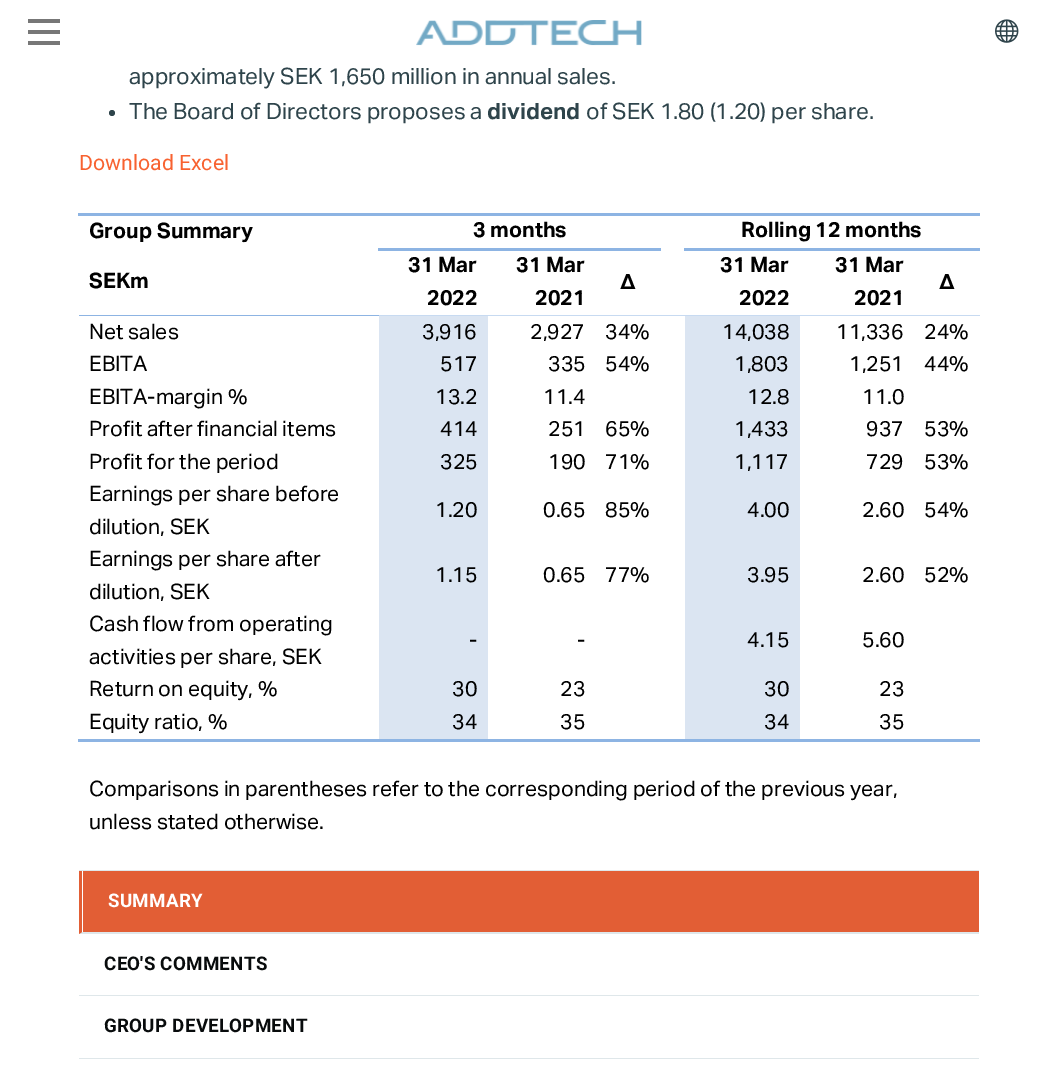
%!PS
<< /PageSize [1057 1079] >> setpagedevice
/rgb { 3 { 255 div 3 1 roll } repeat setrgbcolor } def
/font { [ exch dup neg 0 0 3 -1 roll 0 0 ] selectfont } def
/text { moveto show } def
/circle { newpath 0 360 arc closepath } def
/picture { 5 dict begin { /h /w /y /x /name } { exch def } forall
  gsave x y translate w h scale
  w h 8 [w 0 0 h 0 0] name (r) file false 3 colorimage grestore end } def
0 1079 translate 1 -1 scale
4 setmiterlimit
255 255 255 rgb
0 0 1057 1079 rectfill
119 119 119 rgb
28 30 32 4 rectfill
28 19 32 4 rectfill
28 41 32 4 rectfill
(img_01.rgb) 416 20 226 26 picture
(img_02.rgb) 995 19 24 24 picture
46 68 75 rgb
112 113 3 circle fill
141 180 227 rgb
378 248 283 3 rectfill
78 213 902 3 rectfill
684 248 296 3 rectfill
79 315 301 1 rectfill
199 218 241 rgb
379 315 601 1 rectfill
219 229 242 rgb
379 316 109 423 rectfill
685 316 115 423 rectfill
141 180 227 rgb
78 739 302 3 rectfill
378 739 602 3 rectfill
223 231 234 rgb
79 870 900 1 rectfill
226 94 53 rgb
83 871 896 61 rectfill
223 231 234 rgb
979 934 moveto -900 0 rlineto 3 -2 rlineto 897 0 rlineto closepath fill
226 94 53 rgb
79 934 moveto 0 -63 rlineto 3 0 rlineto 0 61 rlineto closepath fill
223 231 234 rgb
79 995 900 1 rectfill
79 1058 900 1 rectfill
/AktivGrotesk-Regular 22.5 font
46 68 75 rgb
(approximately SEK 1,650 million in annual sales.) 129 84 text
(The Board of Directors proposes a) 129 119 text
/AktivGrotesk-Bold 22.5 font
(dividend) 487 119 text
/AktivGrotesk-Regular 22.5 font
(of SEK 1.80 \(1.20\) per share.) 586 119 text
/Roboto-Regular 21.25 font
248 98 48 rgb
(Download Excel) 79 170 text
/AktivGrotesk-Bold 21.25 font
0 0 0 rgb
(Group Summary) 89 238 text
(3 months) 473 237 text
(Rolling 12 months) 741 237 text
(SEKm) 89 288 text
(31 Mar) 408 272 text
(2022) 427 305 text
(31 Mar) 516 272 text
(2021) 535 305 text
/Roboto-Bold 21.25 font
(∆) 620 289 text
/AktivGrotesk-Bold 21.25 font
(31 Mar) 720 272 text
(2022) 739 305 text
(31 Mar) 835 272 text
(2021) 854 305 text
/Roboto-Bold 21.25 font
(∆) 939 289 text
/AktivGrotesk-Regular 21.25 font
(Net sales) 89 339 text
(3,916) 422 339 text
(2,927) 530 339 text
(34%) 605 339 text
(14,038) 722 339 text
(11,336) 836 339 text
(24%) 924 339 text
(EBITA) 89 371 text
(517) 440 371 text
(335) 548 371 text
(54%) 605 371 text
(1,803) 734 371 text
(1,251) 849 371 text
(44%) 924 371 text
(EBITA-margin %) 89 404 text
(13.2) 435 404 text
(11.4) 543 404 text
(12.8) 747 404 text
(11.0) 862 404 text
(Profit after financial items) 89 436 text
(414) 440 436 text
(251) 548 436 text
(65%) 605 436 text
(1,433) 734 436 text
(937) 866 436 text
(53%) 924 436 text
(Profit for the period) 89 469 text
(325) 440 469 text
(190) 548 469 text
(71%) 605 469 text
(1,117) 734 469 text
(729) 866 469 text
(53%) 924 469 text
(Earnings per share before) 89 501 text
(dilution, SEK) 89 534 text
(1.20) 435 517 text
(0.65) 543 517 text
(85%) 605 517 text
(4.00) 747 517 text
(2.60) 862 517 text
(54%) 924 517 text
(Earnings per share after) 89 566 text
(dilution, SEK) 89 599 text
(1.15) 435 582 text
(0.65) 543 582 text
(77%) 605 582 text
(3.95) 747 582 text
(2.60) 862 582 text
(52%) 924 582 text
(Cash flow from operating) 89 631 text
(activities per share, SEK) 89 664 text
(-) 469 647 text
(-) 577 647 text
(4.15) 747 647 text
(5.60) 862 647 text
(Return on equity, %) 89 696 text
(30) 452 696 text
(23) 560 696 text
(30) 764 696 text
(23) 879 696 text
(Equity ratio, %) 89 729 text
(34) 452 729 text
(35) 560 729 text
(34) 764 729 text
(35) 879 729 text
(Comparisons in parentheses refer to the corresponding period of the previous year,) 89 796 text
(unless stated otherwise.) 89 829 text
/Roboto-Bold 18.75 font
255 255 255 rgb
108 907 moveto 0.25 0 (SUMMARY) ashow
8 11 12 rgb
104 970 moveto 0.25 0 (CEO'S COMMENTS) ashow
104 1032 moveto 0.25 0 (GROUP DEVELOPMENT) ashow
showpage
